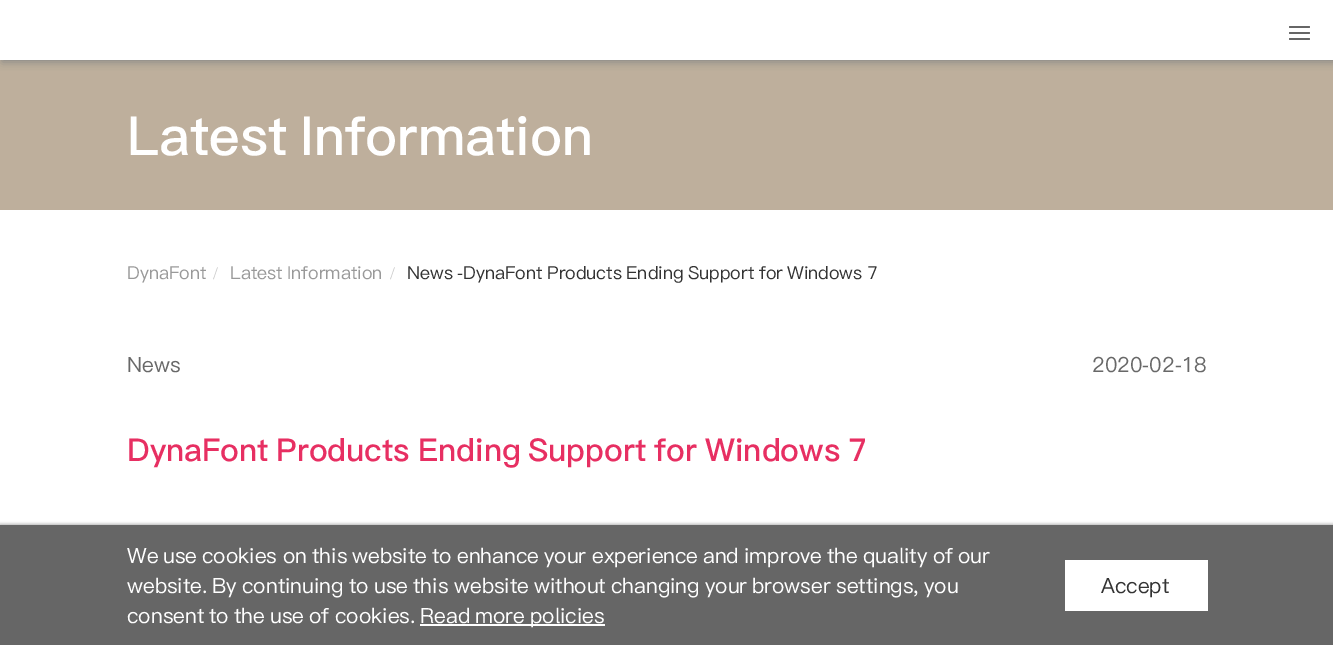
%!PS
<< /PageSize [1333 645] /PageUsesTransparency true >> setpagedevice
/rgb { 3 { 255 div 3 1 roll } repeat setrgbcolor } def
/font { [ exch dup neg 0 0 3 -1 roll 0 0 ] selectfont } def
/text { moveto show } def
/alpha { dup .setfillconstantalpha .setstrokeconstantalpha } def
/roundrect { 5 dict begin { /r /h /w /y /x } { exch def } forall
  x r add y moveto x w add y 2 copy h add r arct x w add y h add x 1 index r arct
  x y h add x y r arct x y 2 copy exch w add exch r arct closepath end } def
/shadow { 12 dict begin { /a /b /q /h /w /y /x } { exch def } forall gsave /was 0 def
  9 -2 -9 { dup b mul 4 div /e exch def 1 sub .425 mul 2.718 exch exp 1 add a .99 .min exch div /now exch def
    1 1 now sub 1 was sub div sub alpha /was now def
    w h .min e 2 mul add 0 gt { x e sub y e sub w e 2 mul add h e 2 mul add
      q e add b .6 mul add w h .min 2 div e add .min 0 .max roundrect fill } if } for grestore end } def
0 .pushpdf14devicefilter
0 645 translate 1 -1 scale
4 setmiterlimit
255 255 255 rgb
0 0 1333 645 rectfill
190 175 156 rgb
0 60 1333 150 rectfill
gsave
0 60 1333 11 rectclip
136 136 136 rgb
2 2 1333 60 0 4.5 1 shadow
grestore
102 102 102 rgb
1289 26 21 2 1 roundrect fill
1289 32 21 2 1 roundrect fill
1289 38 21 2 1 roundrect fill
0 0 0 rgb
0 524 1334 120 0 1.5 0.3 shadow
102 102 102 rgb
0 525 1333 120 rectfill
255 255 255 rgb
420 624 185 2 rectfill
1065 560 143 51 rectfill
/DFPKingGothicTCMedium-Medium 54 font
(Latest) 127 155 text
(Information) 300 155 text
/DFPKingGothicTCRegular-Regular 18 font
153 153 153 rgb
(DynaFont) 127 279 text
/LiberationSerif-Regular 18 font
204 204 204 rgb
(/) 213 279 text
/DFPKingGothicTCRegular-Regular 18 font
153 153 153 rgb
(Latest) 230 279 text
(Information) 287 279 text
/LiberationSerif-Regular 18 font
204 204 204 rgb
(/) 390 279 text
/DFPKingGothicTCRegular-Regular 18 font
51 51 51 rgb
(News) 407 279 text
(-DynaFont) 457 279 text
(Products) 547 279 text
(Ending) 626 279 text
(Support) 688 279 text
(for) 759 279 text
(Windows) 787 279 text
(7) 867 279 text
/DFPKingGothicTCRegular-Regular 21 font
104 104 104 rgb
(News) 127 372 text
(2020-02-18) 1092 372 text
/DFPKingGothicTCMedium-Medium 31.5 font
231 47 98 rgb
(DynaFont) 127 461 text
(Products) 276 461 text
(Ending) 418 461 text
(Support) 528 461 text
(for) 654 461 text
(Windows) 705 461 text
(7) 848 461 text
/DFPKingGothicTCRegular-Regular 21 font
255 255 255 rgb
(We) 127 563 text
(use) 163 563 text
(cookies) 202 563 text
(on) 283 563 text
(this) 312 563 text
(website) 352 563 text
(to) 432 563 text
(enhance) 457 563 text
(your) 544 563 text
(experience) 592 563 text
(and) 703 563 text
(improve) 744 563 text
(the) 827 563 text
(quality) 863 563 text
(of) 933 563 text
(our) 958 563 text
(website.) 127 593 text
(By) 212 593 text
(continuing) 242 593 text
(to) 349 593 text
(use) 374 593 text
(this) 413 593 text
(website) 454 593 text
(without) 534 593 text
(changing) 611 593 text
(your) 705 593 text
(browser) 752 593 text
(settings,) 836 593 text
(you) 924 593 text
(consent) 127 623 text
(to) 209 623 text
(the) 234 623 text
(use) 270 623 text
(of) 309 623 text
(cookies.) 335 623 text
(Read) 420 623 text
(more) 475 623 text
(policies) 530 623 text
51 51 51 rgb
(Accept) 1101 593 text
.poppdf14devicefilter showpage
